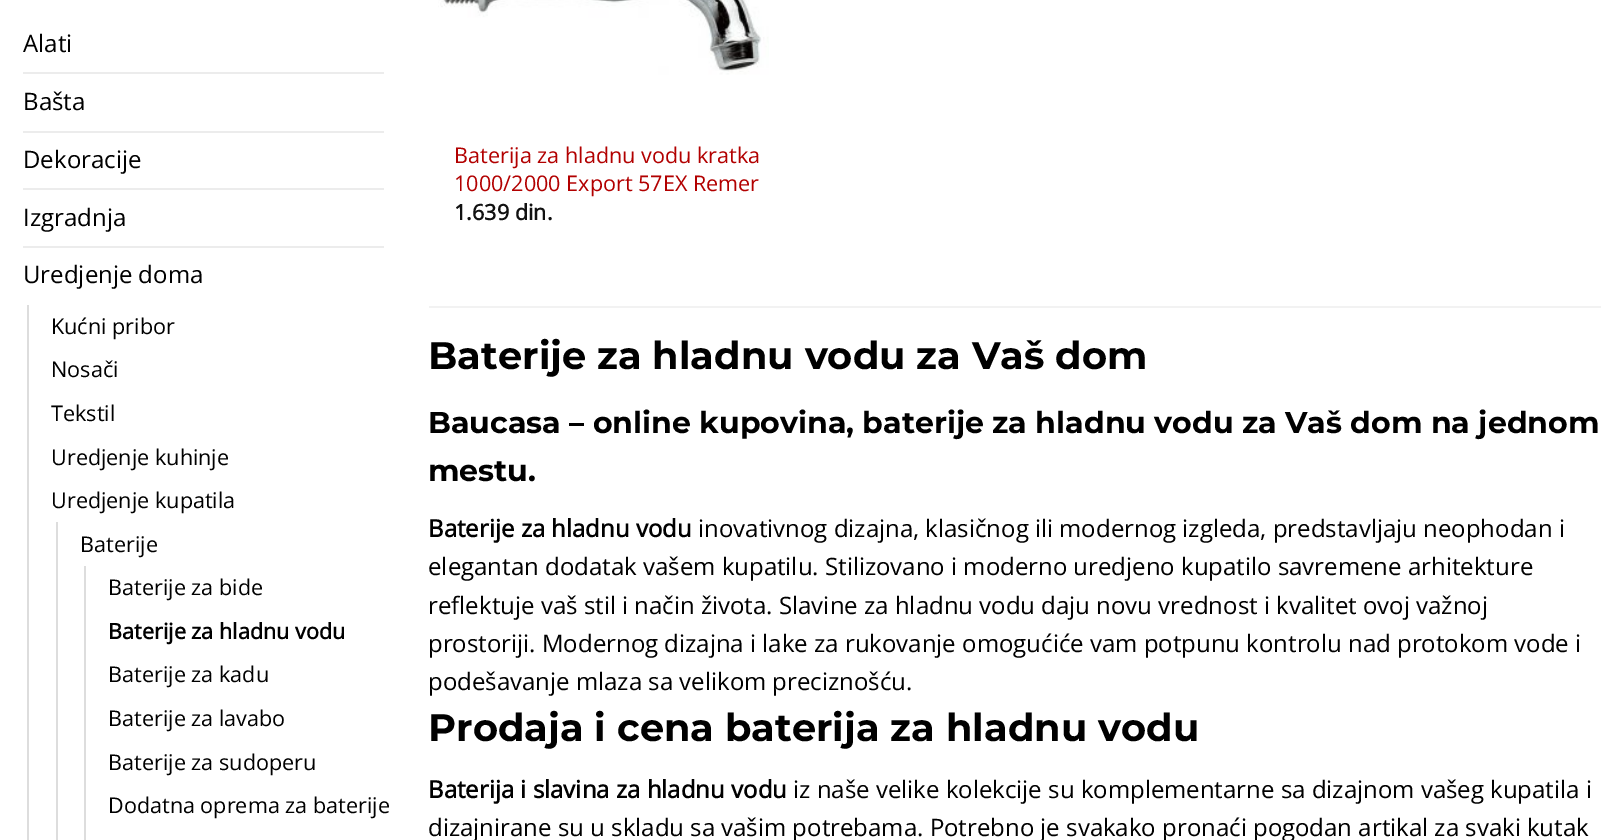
%!PS
<< /PageSize [1622 840] >> setpagedevice
/rgb { 3 { 255 div 3 1 roll } repeat setrgbcolor } def
/font { [ exch dup neg 0 0 3 -1 roll 0 0 ] selectfont } def
/text { moveto show } def
/picture { 5 dict begin { /h /w /y /x /name } { exch def } forall
  gsave x y translate w h scale
  w h 8 [w 0 0 h 0 0] name (r) file false 3 colorimage grestore end } def
0 840 translate 1 -1 scale
4 setmiterlimit
255 255 255 rgb
0 0 1622 840 rectfill
236 236 236 rgb
23 72 361 2 rectfill
23 131 361 2 rectfill
23 188 361 2 rectfill
23 246 361 2 rectfill
221 221 221 rgb
27 305 2 535 rectfill
56 522 2 318 rectfill
84 566 2 274 rectfill
(img_01.rgb) 438 0 331 75 picture
242 242 242 rgb
429 306 1172 2 rectfill
/OpenSans-Regular 24 font
0 0 0 rgb
(Alati) 23 52 text
(Bašta) 23 110 text
(Dekoracije) 23 168 text
(Izgradnja) 23 226 text
(Uredjenje doma) 23 283 text
/OpenSans-Regular 21.6 font
(Kućni pribor) 51 334 text
(Nosači) 51 377 text
(Tekstil) 51 421 text
(Uredjenje kuhinje) 51 465 text
(Uredjenje kupatila) 51 508 text
(Baterije) 80 552 text
(Baterije za bide) 108 595 text
/OpenSans-Bold 21.6 font
(Baterije za hladnu vodu) 108 639 text
/OpenSans-Regular 21.6 font
(Baterije za kadu) 108 682 text
(Baterije za lavabo) 108 726 text
(Baterije za sudoperu) 108 770 text
(Dodatna oprema za baterije) 108 813 text
178 0 0 rgb
(Baterija za hladnu vodu kratka) 454 163 text
(1000/2000 Export 57EX Remer) 454 191 text
/OpenSans-Bold 21.6 font
17 17 17 rgb
(1.639 din.) 454 220 text
/Montserrat-Bold 38.4 font
0 0 0 rgb
(Baterije za hladnu vodu za Vaš dom) 428 369 text
/Montserrat-Bold 30 font
(Baucasa – online kupovina, baterije za hladnu vodu za Vaš dom na jednom) 428 433 text
(mestu.) 428 481 text
/OpenSans-Bold 24 font
(Baterije za hladnu vodu) 428 537 text
/OpenSans-Regular 24 font
(inovativnog dizajna, klasičnog ili modernog izgleda, predstavljaju neophodan i) 698 537 text
(elegantan dodatak vašem kupatilu. Stilizovano i moderno uredjeno kupatilo savremene arhitekture) 428 575 text
(reflektuje vaš stil i način života. Slavine za hladnu vodu daju novu vrednost i kvalitet ovoj važnoj) 428 614 text
(prostoriji. Modernog dizajna i lake za rukovanje omogućiće vam potpunu kontrolu nad protokom vode i) 428 652 text
(podešavanje mlaza sa velikom preciznošću.) 428 690 text
/Montserrat-Bold 38.4 font
(Prodaja i cena baterija za hladnu vodu) 428 741 text
/OpenSans-Bold 24 font
(Baterija i slavina za hladnu vodu) 428 798 text
/OpenSans-Regular 24 font
(iz naše velike kolekcije su komplementarne sa dizajnom vašeg kupatila i) 793 798 text
(dizajnirane su u skladu sa vašim potrebama. Potrebno je svakako pronaći pogodan artikal za svaki kutak) 428 836 text
showpage
